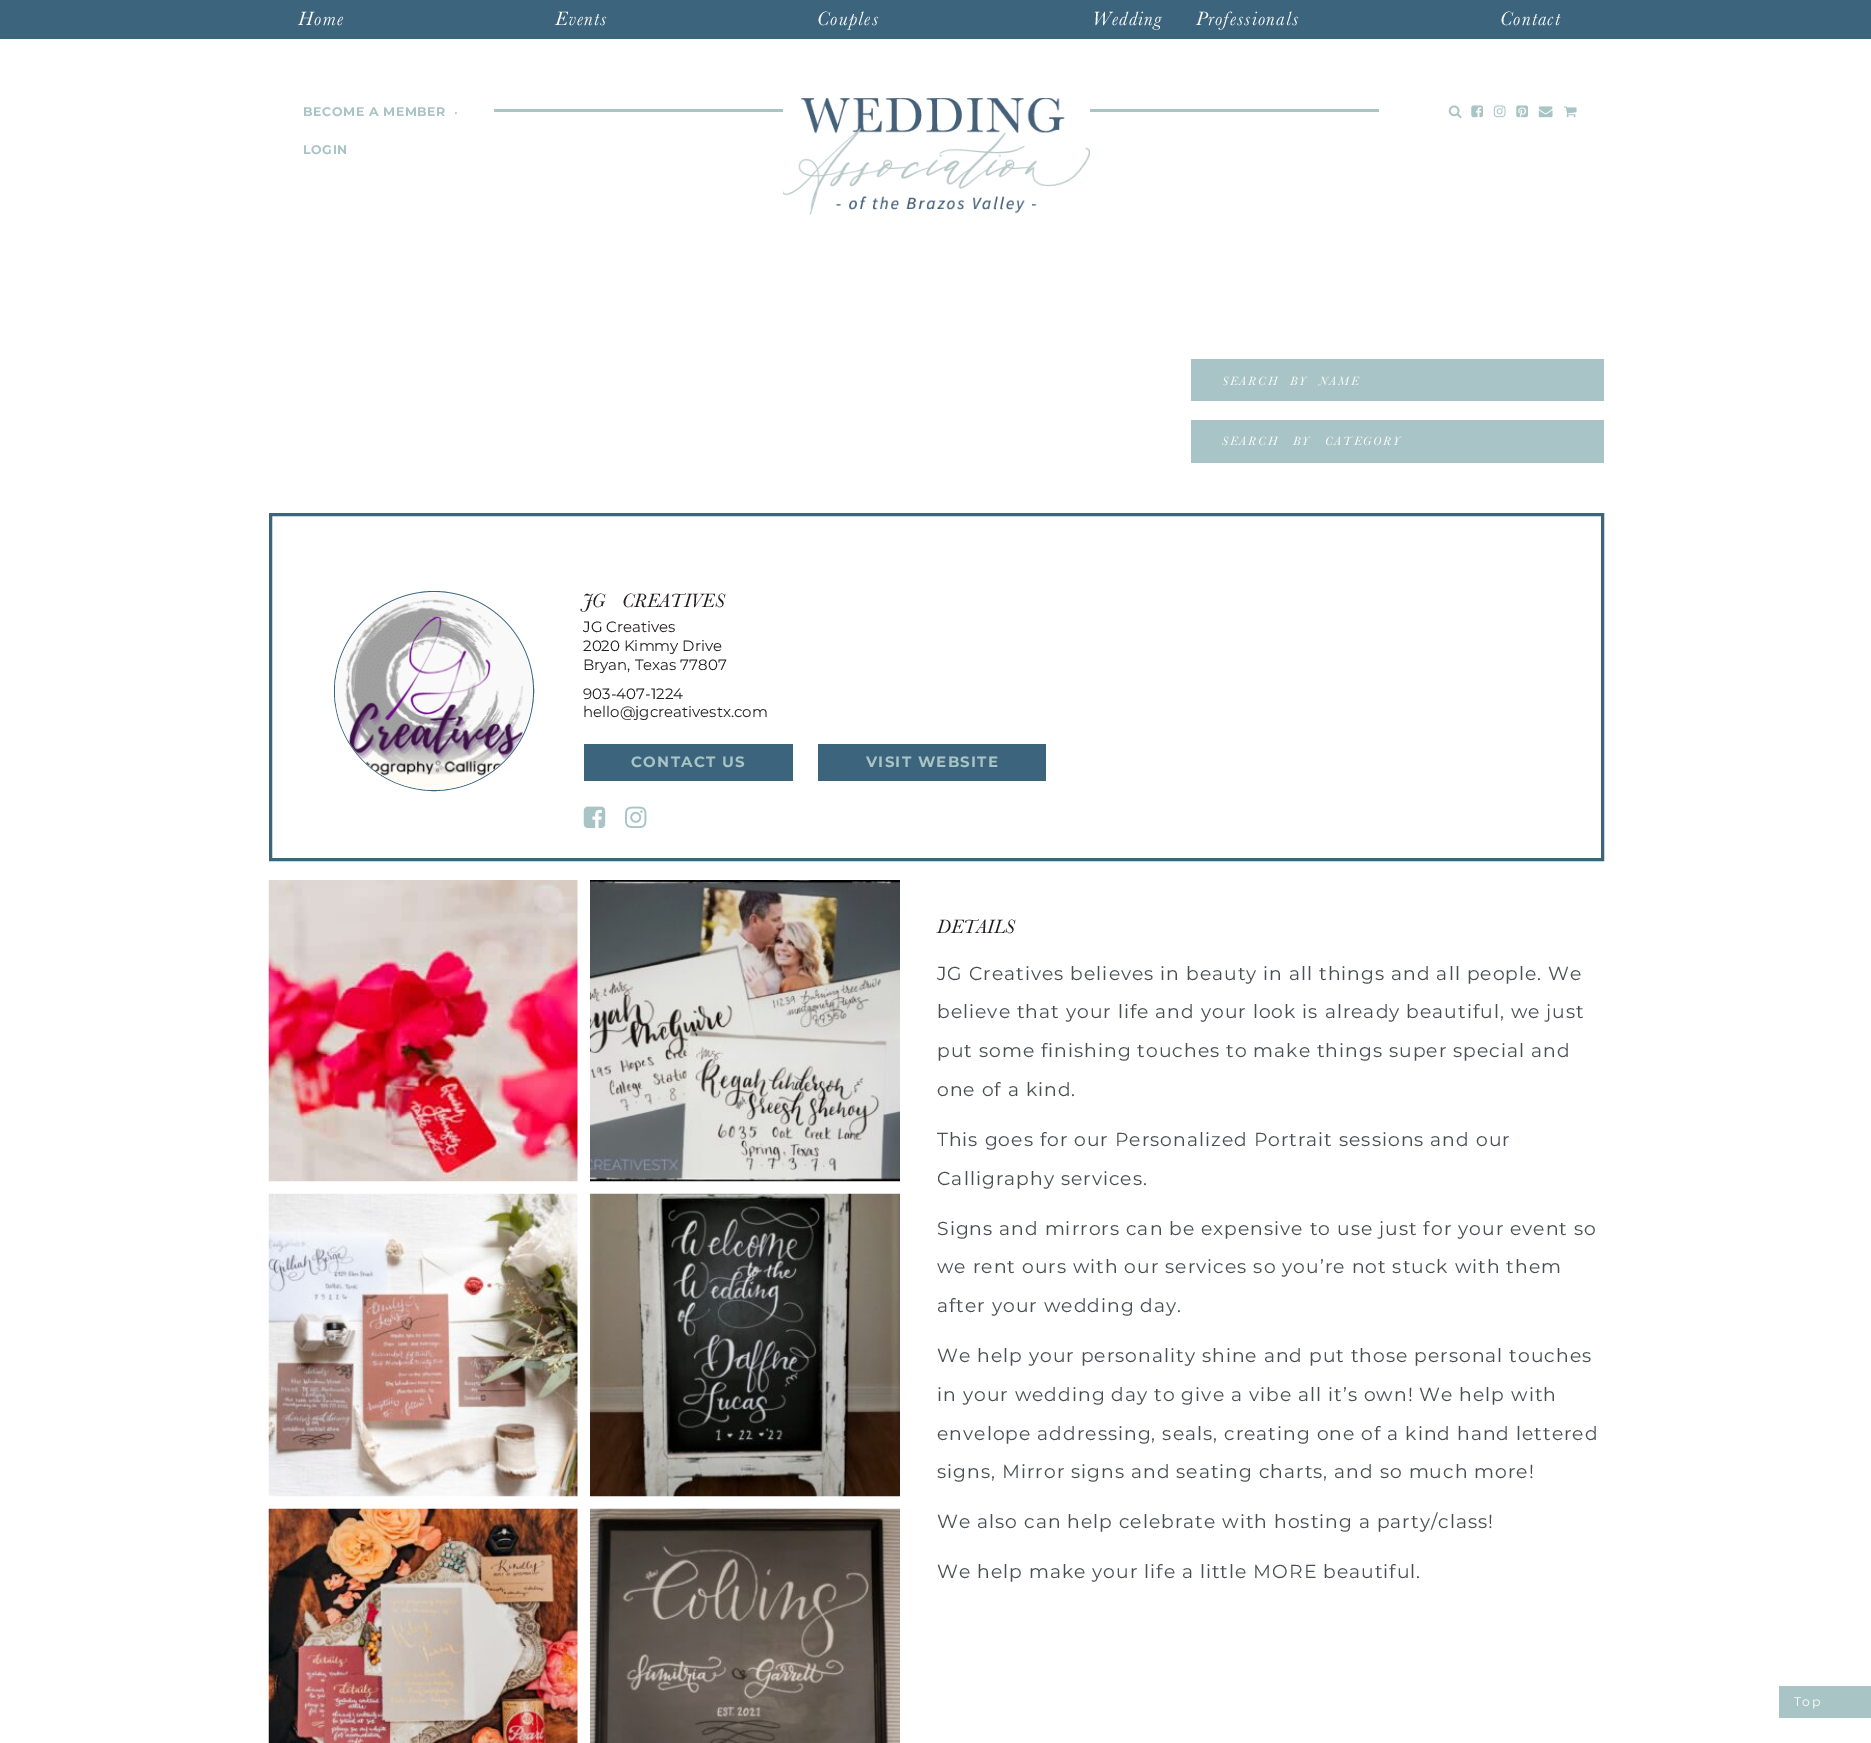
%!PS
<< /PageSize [1871 1743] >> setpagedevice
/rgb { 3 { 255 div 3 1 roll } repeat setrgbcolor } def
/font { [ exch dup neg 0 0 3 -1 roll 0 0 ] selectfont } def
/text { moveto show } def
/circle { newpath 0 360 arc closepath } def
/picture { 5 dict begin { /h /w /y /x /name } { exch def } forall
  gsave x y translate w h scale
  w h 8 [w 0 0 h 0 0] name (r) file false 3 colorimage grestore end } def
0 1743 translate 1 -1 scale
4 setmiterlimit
255 255 255 rgb
0 0 1871 1743 rectfill
60 101 125 rgb
0 0 1871 39 rectfill
169 196 197 rgb
494 109 885 3 rectfill
255 255 255 rgb
783 109 307 3 rectfill
(img_01.rgb) 783 98 307 117 picture
(img_02.rgb) 1448 105 14 14 picture
(img_03.rgb) 1471 105 12 13 picture
(img_04.rgb) 1493 105 13 13 picture
(img_05.rgb) 1516 105 12 13 picture
(img_06.rgb) 1538 106 15 12 picture
(img_07.rgb) 1563 106 14 12 picture
168 196 199 rgb
1191 359 413 42 rectfill
1191 420 413 43 rectfill
60 101 125 rgb
3 setlinewidth
270.5 514.5 1332 345 rectstroke
1 setlinewidth
434 691 99.5 circle stroke
(img_08.rgb) 335 592 198 198 picture
584 744 209 37 rectfill
818 744 228 37 rectfill
(img_09.rgb) 583 806 23 23 picture
(img_10.rgb) 625 806 22 22 picture
(img_11.rgb) 268 880 310 302 picture
(img_12.rgb) 590 880 310 302 picture
(img_13.rgb) 268 1193 310 304 picture
(img_14.rgb) 590 1193 310 304 picture
(img_15.rgb) 268 1508 310 235 picture
(img_16.rgb) 590 1508 310 235 picture
169 196 197 rgb
1779 1686 92 32 rectfill
/Baskerville-Italic 20 font
255 255 255 rgb
298 25 moveto 1.25 0 (Home) ashow
555 25 moveto 1.25 0 (Events) ashow
817 25 moveto 1.25 0 (Couples) ashow
1092 25 moveto 27 0 32 1.25 0 (Wedding Professionals) awidthshow
1500 25 moveto 1.25 0 (Contact) ashow
/Montserrat-Bold 12.5 font
169 196 197 rgb
303 116 moveto 0.6 0 (BECOME A MEMBER) ashow
/Montserrat-Regular 18.75 font
(.) 454 114 text
/Montserrat-Bold 12.5 font
303 154 moveto 0.6 0 (LOGIN) ashow
gsave
1223 374 336 14 rectclip
/Baskerville-Italic 12.5 font
255 255 255 rgb
1222 385 moveto 6 0 32 1.9 0 (SEARCH BY NAME) awidthshow
grestore
/Baskerville-Italic 12.5 font
255 255 255 rgb
1222 445 moveto 9 0 32 1.9 0 (SEARCH BY CATEGORY) awidthshow
/Baskerville-Italic 20 font
35 31 32 rgb
583 607 moveto 12 0 32 (JG CREATIVES) widthshow
/Montserrat-Regular 15 font
(JG Creatives) 583 632 text
(2020 Kimmy Drive) 583 651 text
(Bryan, Texas 77807) 583 670 text
(903-407-1224) 583 699 text
(hello@jgcreativestx.com) 583 717 text
/Montserrat-Bold 15 font
169 196 197 rgb
631 767 moveto 1.25 0 (CONTACT US) ashow
866 767 moveto 1.25 0 (VISIT WEBSITE) ashow
/Baskerville-Italic 20 font
35 31 32 rgb
(DETAILS) 937 933 text
/Montserrat-Regular 18.75 font
75 79 85 rgb
937 980 moveto 1 0 (JG Creatives believes in beauty in all things and all people. We) ashow
937 1018 moveto 1 0 (believe that your life and your look is already beautiful, we just) ashow
937 1057 moveto 1 0 (put some finishing touches to make things super special and) ashow
937 1096 moveto 1 0 (one of a kind.) ashow
937 1146 moveto 1 0 (This goes for our Personalized Portrait sessions and our) ashow
937 1185 moveto 1 0 (Calligraphy services.) ashow
937 1235 moveto 1 0 (Signs and mirrors can be expensive to use just for your event so) ashow
937 1273 moveto 1 0 (we rent ours with our services so you’re not stuck with them) ashow
937 1312 moveto 1 0 (after your wedding day.) ashow
937 1362 moveto 1 0 (We help your personality shine and put those personal touches) ashow
937 1401 moveto 1 0 (in your wedding day to give a vibe all it’s own! We help with) ashow
937 1440 moveto 1 0 (envelope addressing, seals, creating one of a kind hand lettered) ashow
937 1478 moveto 1 0 (signs, Mirror signs and seating charts, and so much more!) ashow
937 1528 moveto 1 0 (We also can help celebrate with hosting a party/class!) ashow
937 1578 moveto 1 0 (We help make your life a little MORE beautiful.) ashow
/Montserrat-Regular 12.5 font
255 255 255 rgb
1794 1706 moveto 1.25 0 (Top) ashow
showpage
